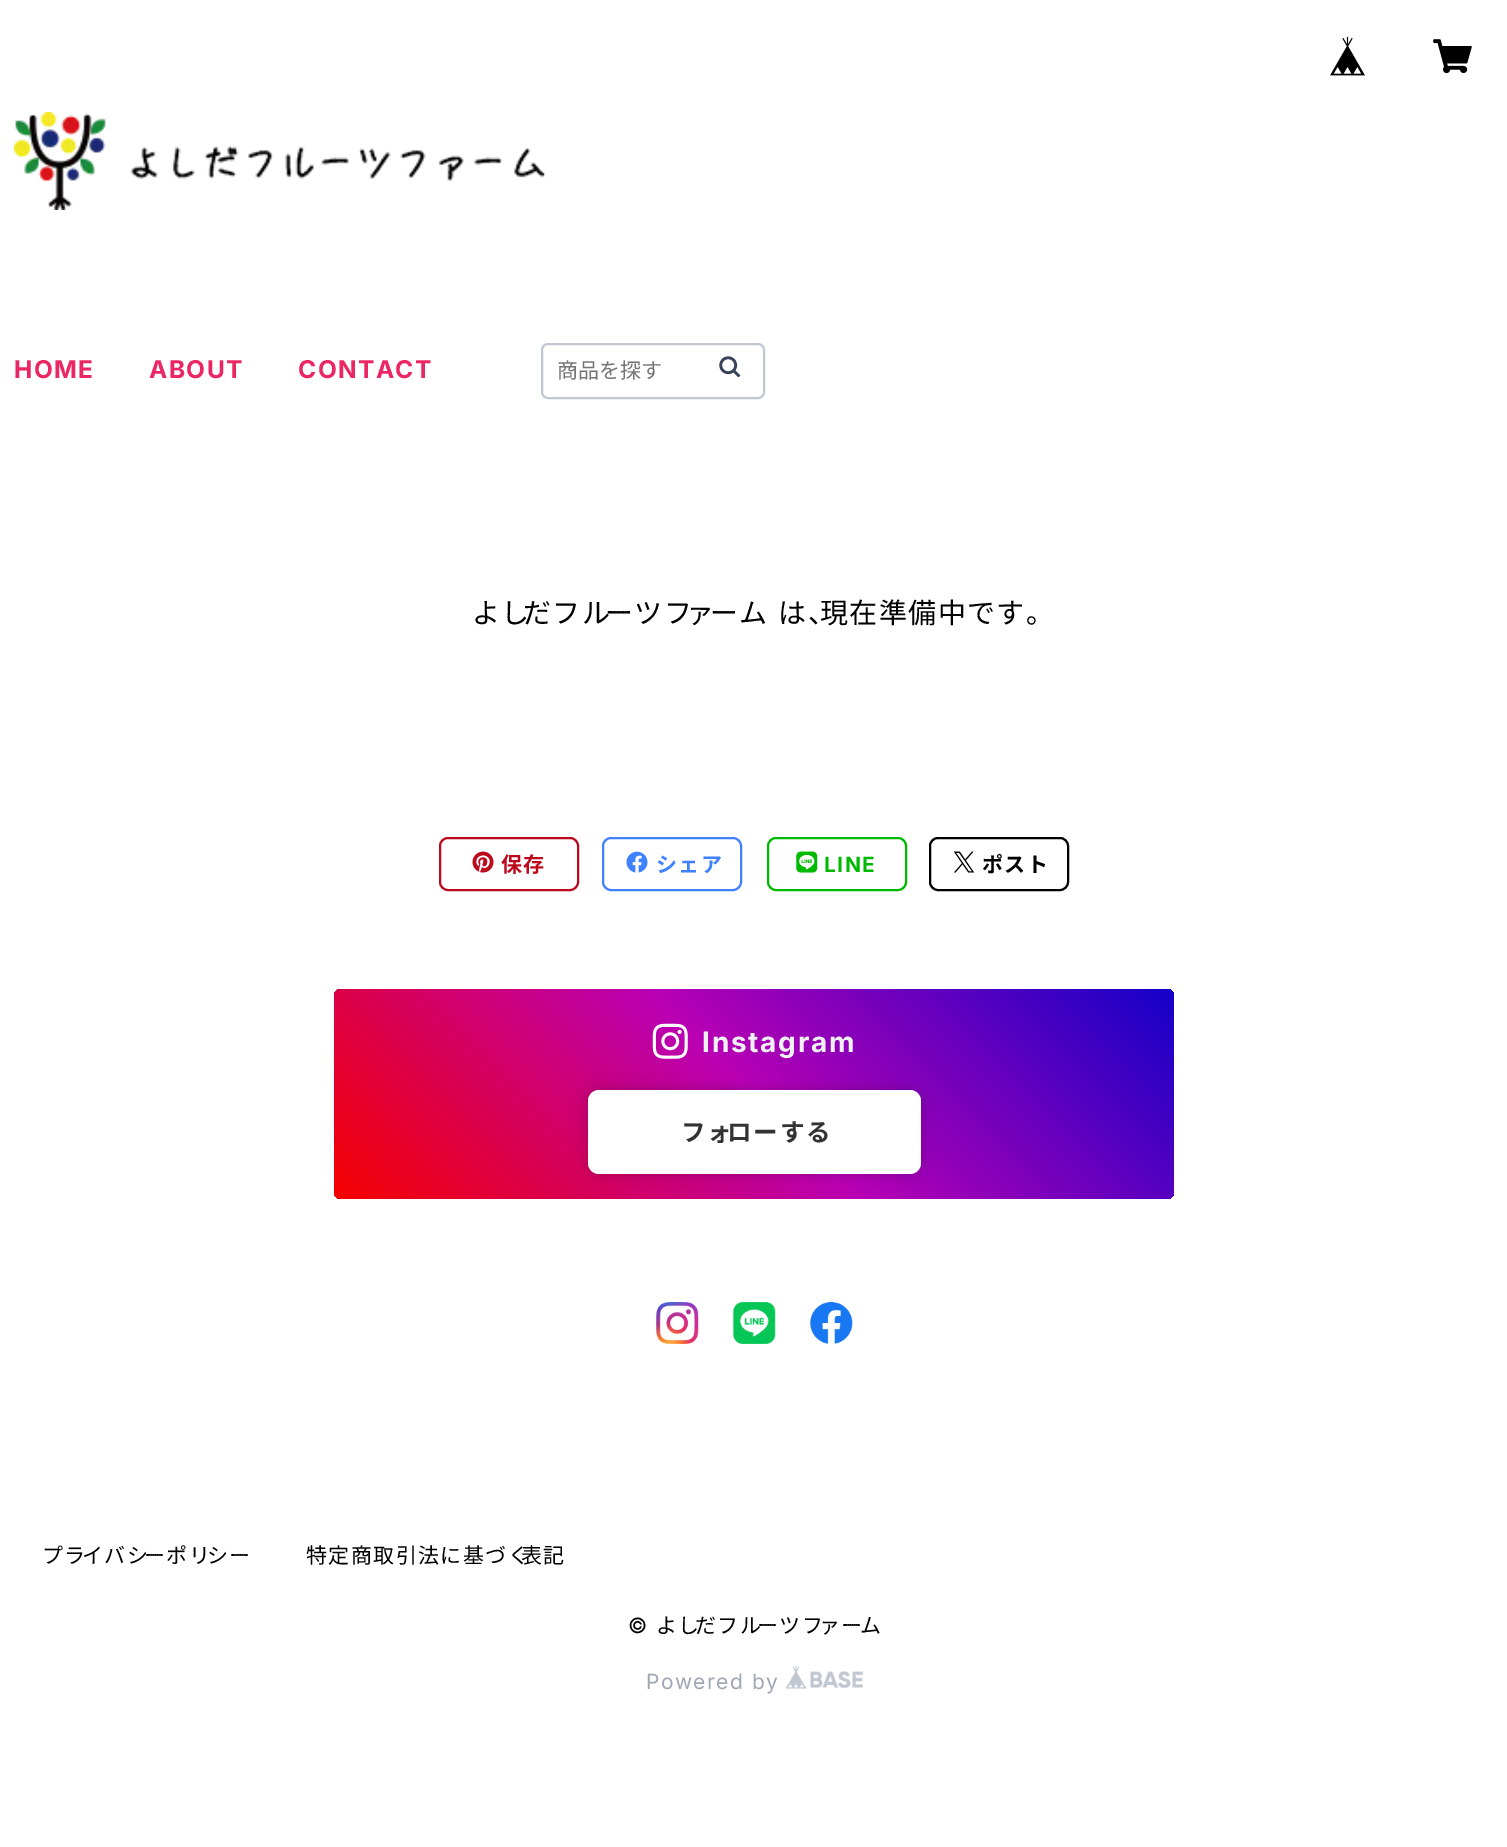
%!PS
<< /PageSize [1507 1847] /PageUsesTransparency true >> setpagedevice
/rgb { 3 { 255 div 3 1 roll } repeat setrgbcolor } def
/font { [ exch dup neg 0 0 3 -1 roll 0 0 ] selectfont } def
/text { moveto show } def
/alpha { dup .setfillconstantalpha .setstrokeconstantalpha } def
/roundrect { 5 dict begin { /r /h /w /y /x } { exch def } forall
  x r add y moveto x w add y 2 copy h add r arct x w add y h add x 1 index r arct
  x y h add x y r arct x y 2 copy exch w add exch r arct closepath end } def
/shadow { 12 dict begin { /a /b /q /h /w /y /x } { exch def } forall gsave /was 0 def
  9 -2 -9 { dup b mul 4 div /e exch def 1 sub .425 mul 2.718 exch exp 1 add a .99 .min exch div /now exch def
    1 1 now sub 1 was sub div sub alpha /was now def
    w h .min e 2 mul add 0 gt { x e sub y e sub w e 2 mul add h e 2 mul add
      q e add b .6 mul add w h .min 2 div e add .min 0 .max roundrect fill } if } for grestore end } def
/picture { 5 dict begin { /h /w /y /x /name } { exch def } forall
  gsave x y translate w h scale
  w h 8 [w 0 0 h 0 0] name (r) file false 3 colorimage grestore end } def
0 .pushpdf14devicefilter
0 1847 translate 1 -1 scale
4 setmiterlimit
255 255 255 rgb
0 0 1507 1847 rectfill
(img_01.rgb) 1330 36 35 40 picture
(img_02.rgb) 1433 39 39 35 picture
(img_03.rgb) 14 112 531 98 picture
194 200 210 rgb
2 setlinewidth
542 344 222 54 6 roundrect stroke
(img_04.rgb) 719 356 22 22 picture
189 9 28 rgb
440 838 138 52 8 roundrect stroke
(img_05.rgb) 472 851 22 22 picture
64 129 255 rgb
603 838 138 52 8 roundrect stroke
(img_06.rgb) 626 851 22 22 picture
0 185 1 rgb
768 838 138 52 8 roundrect stroke
(img_07.rgb) 796 851 22 22 picture
0 0 0 rgb
930 838 138 52 8 roundrect stroke
(img_08.rgb) 953 851 22 22 picture
gsave 334 989 840 210 7 roundrect clip newpath
<< /ShadingType 2 /ColorSpace /DeviceRGB /Coords [1017 831 492 1356] /Extend [true true] /Function << /FunctionType 3 /Domain [0 1] /Functions [<< /FunctionType 2 /Domain [0 1] /C0 [0.078 0 0.784] /C1 [0.725 0 0.706] /N 1 >> << /FunctionType 2 /Domain [0 1] /C0 [0.725 0 0.706] /C1 [0.961 0 0] /N 1 >>] /Bounds [0.5] /Encode [0 1 0 1] >> >> shfill grestore
(img_09.rgb) 652 1023 36 36 picture
588 1090 333 84 11 7 0.2 shadow
255 255 255 rgb
588 1090 333 84 11 roundrect fill
(img_10.rgb) 656 1302 43 42 picture
(img_11.rgb) 733 1302 43 42 picture
(img_12.rgb) 810 1302 43 42 picture
(img_13.rgb) 785 1666 78 23 picture
/Inter-Bold 24.5 font
234 39 99 rgb
14 378 moveto 1.4 0 (HOME) ashow
149 378 moveto 1.4 0 (ABOUT) ashow
298 378 moveto 1.4 0 (CONTACT) ashow
/NotoSansJP-Regular 21 font
117 117 117 rgb
(商品を探す) 557 378 text
/NotoSansJP-Regular 28 font
0 0 0 rgb
472 623 moveto 2 0 32 1.4 0 (よし) awidthshow
523 623 moveto 2 0 32 1.4 0 (だフル) awidthshow
605 623 moveto 2 0 32 1.4 0 (ーツフ) awidthshow
686 623 moveto 2 0 32 1.4 0 (ァ) awidthshow
710 623 moveto 2 0 32 1.4 0 (ーム は、) awidthshow
820 623 moveto 2 0 32 1.4 0 (現在準備中です。) awidthshow
/NotoSansJP-Bold 21 font
189 9 28 rgb
501 872 moveto 1.4 0 (保存) ashow
64 129 255 rgb
656 872 moveto 1.4 0 (シェア) ashow
/Inter-Bold 21 font
0 185 1 rgb
824 872 moveto 1.4 0 (LINE) ashow
/NotoSansJP-Bold 21 font
0 0 0 rgb
982 872 moveto 1.4 0 (ポスト) ashow
/Inter-Bold 28 font
240 241 244 rgb
702 1052 moveto 1.75 0 (Instagram) ashow
/NotoSansJP-Bold 24.5 font
51 51 51 rgb
681 1141 moveto 1.75 0 (フォ) ashow
727 1141 moveto 1.75 0 (ローする) ashow
/NotoSansJP-Regular 21 font
0 0 0 rgb
42 1563 moveto 1.4 0 (プラ) ashow
82 1563 moveto 1.4 0 (イバシ) ashow
144 1563 moveto 1.4 0 (ーポリ) ashow
207 1563 moveto 1.4 0 (シー) ashow
306 1563 moveto 1.4 0 (特定商取引法に基づく) ashow
521 1563 moveto 1.4 0 (表記) ashow
/Inter-Regular 21 font
628 1633 moveto 1.4 0 (©) ashow
/NotoSansJP-Regular 21 font
656 1633 moveto 1.4 0 (よし) ashow
695 1633 moveto 1.4 0 (だフル) ashow
757 1633 moveto 1.4 0 (ーツフ) ashow
819 1633 moveto 1.4 0 (ァー) ashow
860 1633 moveto 1.4 0 (ム) ashow
/Inter-Regular 21 font
160 167 180 rgb
646 1689 moveto 1.4 0 (Powered by) ashow
.poppdf14devicefilter showpage
